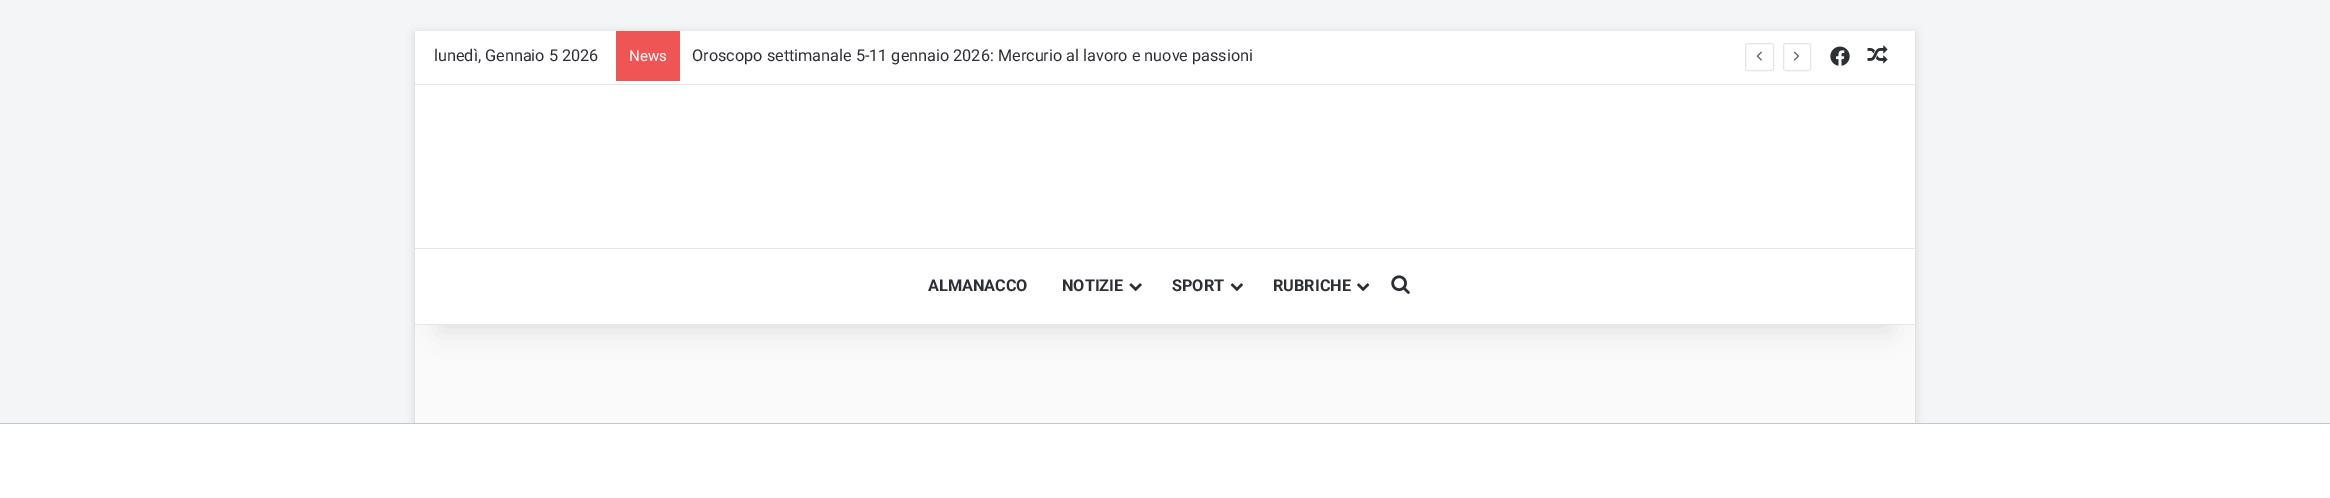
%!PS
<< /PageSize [2330 498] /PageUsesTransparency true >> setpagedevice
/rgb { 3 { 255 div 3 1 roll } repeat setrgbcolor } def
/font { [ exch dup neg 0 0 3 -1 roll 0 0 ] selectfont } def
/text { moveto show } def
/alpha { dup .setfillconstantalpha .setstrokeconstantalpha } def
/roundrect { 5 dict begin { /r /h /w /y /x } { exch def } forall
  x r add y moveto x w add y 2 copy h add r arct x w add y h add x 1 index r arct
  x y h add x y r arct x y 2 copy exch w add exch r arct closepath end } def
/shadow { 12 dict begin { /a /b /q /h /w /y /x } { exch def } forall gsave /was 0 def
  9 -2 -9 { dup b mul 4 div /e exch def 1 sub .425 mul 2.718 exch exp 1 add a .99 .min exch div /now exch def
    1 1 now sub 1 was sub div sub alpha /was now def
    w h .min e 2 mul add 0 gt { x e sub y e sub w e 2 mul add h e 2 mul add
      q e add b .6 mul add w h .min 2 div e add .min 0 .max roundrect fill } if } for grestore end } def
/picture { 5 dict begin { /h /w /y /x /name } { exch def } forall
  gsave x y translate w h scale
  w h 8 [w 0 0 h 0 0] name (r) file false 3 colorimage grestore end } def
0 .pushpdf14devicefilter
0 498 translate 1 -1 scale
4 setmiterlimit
243 245 246 rgb
0 0 2330 498 rectfill
171 171 171 rgb
415 33 1500 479 0 4.5 0.5 shadow
250 250 250 rgb
415 325 1500 98 rectfill
0 0 0 rgb
440 88 1450 243 0 12.5 0.1 shadow
255 255 255 rgb
415 31 1500 293 rectfill
230 230 230 rgb
415 84 1500 1 rectfill
240 85 85 rgb
616 31 64 50 rectfill
230 230 230 rgb
1745.5 43.5 28 27 2 roundrect stroke
(img_01.rgb) 1756 51 6 10 picture
1783.5 43.5 27 27 2 roundrect stroke
(img_02.rgb) 1793 51 7 10 picture
(img_03.rgb) 1830 46 20 20 picture
(img_04.rgb) 1867 45 21 19 picture
415 248 1500 1 rectfill
415 324 1500 1 rectfill
(img_05.rgb) 1129 283 13 9 picture
(img_06.rgb) 1230 283 13 9 picture
(img_07.rgb) 1357 283 13 9 picture
(img_08.rgb) 1391 275 19 19 picture
255 255 255 rgb
0 424 2330 74 rectfill
193 200 210 rgb
0 423 2330 1 rectfill
/Roboto-Regular 16.25 font
44 47 52 rgb
(lunedì, Gennaio 5 2026) 434 61 text
/Roboto-Regular 15 font
255 255 255 rgb
(News) 629 61 text
/Roboto-Regular 16.25 font
44 47 52 rgb
(Oroscopo settimanale 5-11 gennaio 2026: Mercurio al lavoro e nuove passioni) 692 61 text
/Roboto-Bold 16.25 font
(ALMANACCO) 928 291 text
(NOTIZIE) 1062 291 text
(SPORT) 1172 291 text
(RUBRICHE) 1273 291 text
.poppdf14devicefilter showpage
